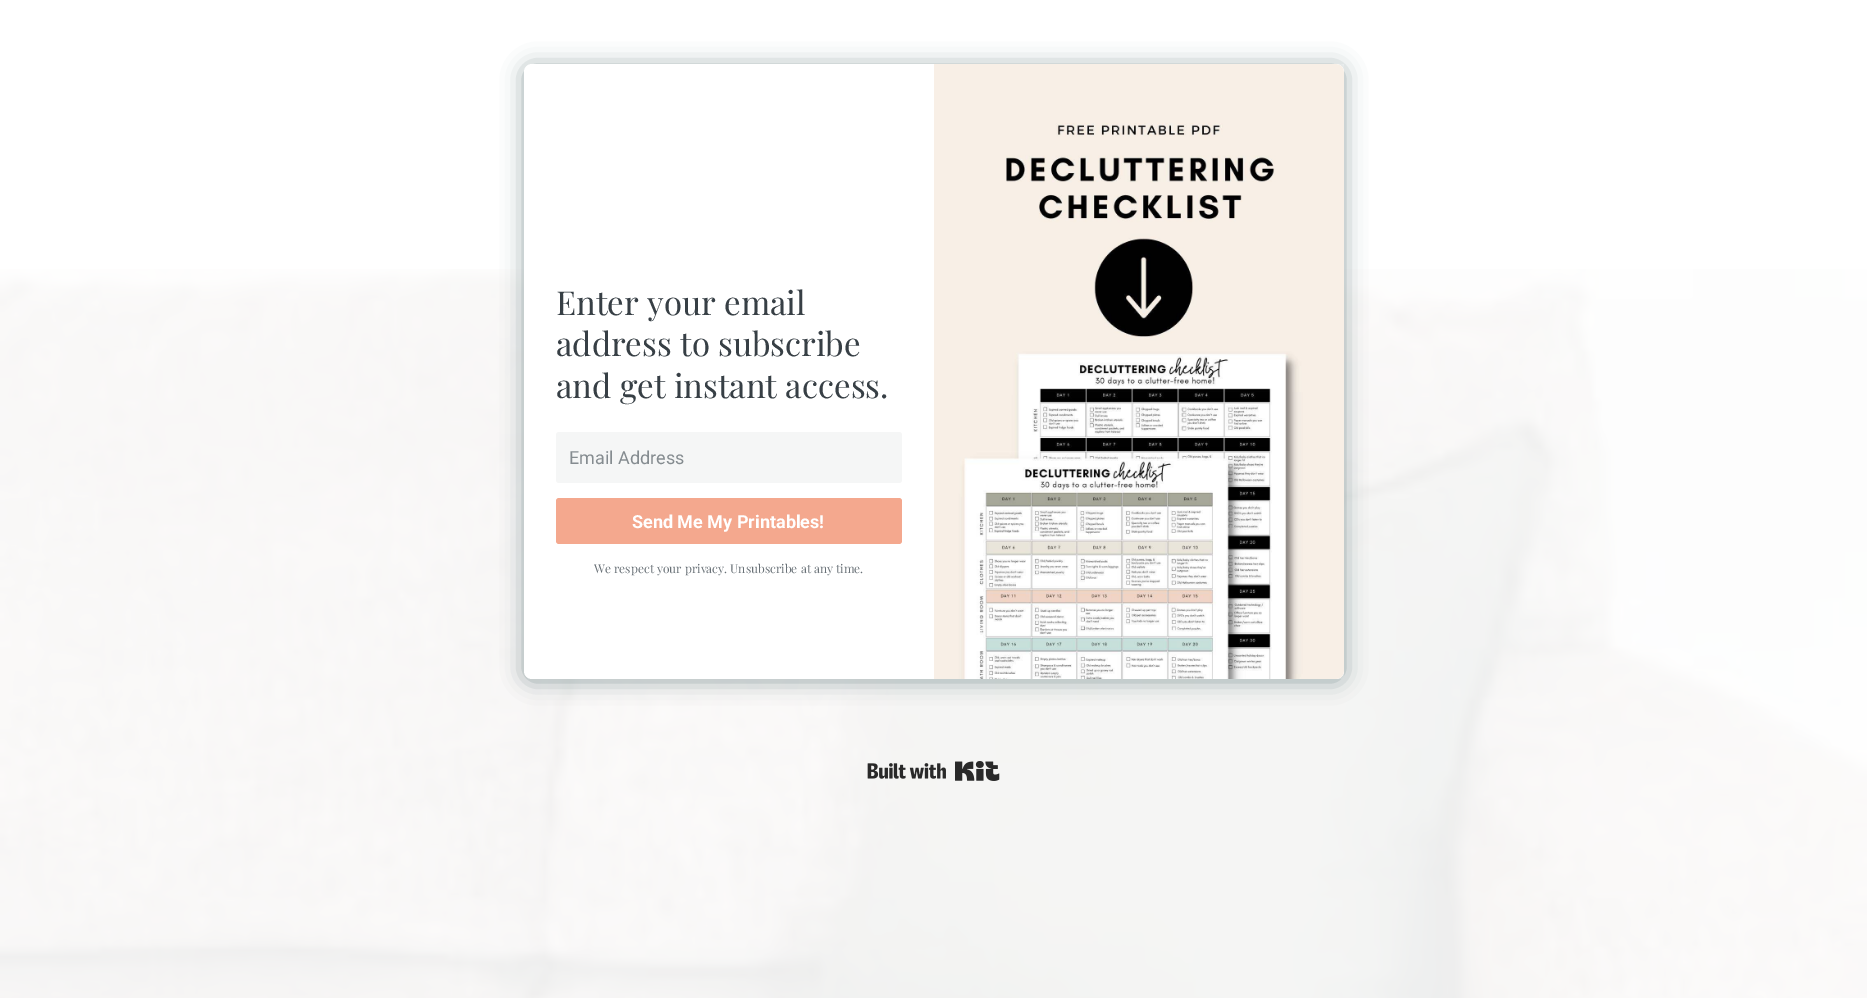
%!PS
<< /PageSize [1867 998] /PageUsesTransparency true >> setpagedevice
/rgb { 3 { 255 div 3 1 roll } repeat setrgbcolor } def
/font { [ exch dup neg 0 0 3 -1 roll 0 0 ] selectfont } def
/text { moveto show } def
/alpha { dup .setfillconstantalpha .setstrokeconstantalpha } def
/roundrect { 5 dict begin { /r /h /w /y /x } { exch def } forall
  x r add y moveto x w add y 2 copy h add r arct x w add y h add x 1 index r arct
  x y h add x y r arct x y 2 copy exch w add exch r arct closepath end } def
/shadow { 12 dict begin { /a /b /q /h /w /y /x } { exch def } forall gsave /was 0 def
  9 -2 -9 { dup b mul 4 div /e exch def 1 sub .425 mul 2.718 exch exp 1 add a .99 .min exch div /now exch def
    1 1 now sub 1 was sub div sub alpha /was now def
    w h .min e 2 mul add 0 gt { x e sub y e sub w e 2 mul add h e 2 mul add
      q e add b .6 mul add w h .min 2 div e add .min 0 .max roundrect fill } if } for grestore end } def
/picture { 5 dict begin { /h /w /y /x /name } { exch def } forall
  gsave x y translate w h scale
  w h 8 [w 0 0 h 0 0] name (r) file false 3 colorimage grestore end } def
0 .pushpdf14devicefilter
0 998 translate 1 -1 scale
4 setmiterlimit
255 255 255 rgb
0 0 1867 998 rectfill
(img_01.rgb) 0 269 1867 729 picture
105 129 131 rgb
524 66 820 615 8 11 0.7 shadow
255 255 255 rgb
524 64 820 615 8 roundrect fill
245 246 246 rgb
556 432 346 51 3 roundrect fill
244 168 142 rgb
556 498 346 46 3 roundrect fill
(img_02.rgb) 934 64 410 615 picture
(img_03.rgb) 867 761 133 20 picture
/PlayfairDisplay-Regular 33 font
55 63 69 rgb
(Enter your email) 556 315 text
(address to subscribe) 556 356 text
(and get instant access.) 556 398 text
/Roboto-Regular 18 font
133 140 144 rgb
(Email Address) 569 464 text
/Roboto-Bold 18 font
255 255 255 rgb
(Send Me My Printables!) 632 528 text
/PlayfairDisplay-Regular 12 font
105 113 119 rgb
(We respect your privacy. Unsubscribe at any time.) 594 573 text
.poppdf14devicefilter showpage
